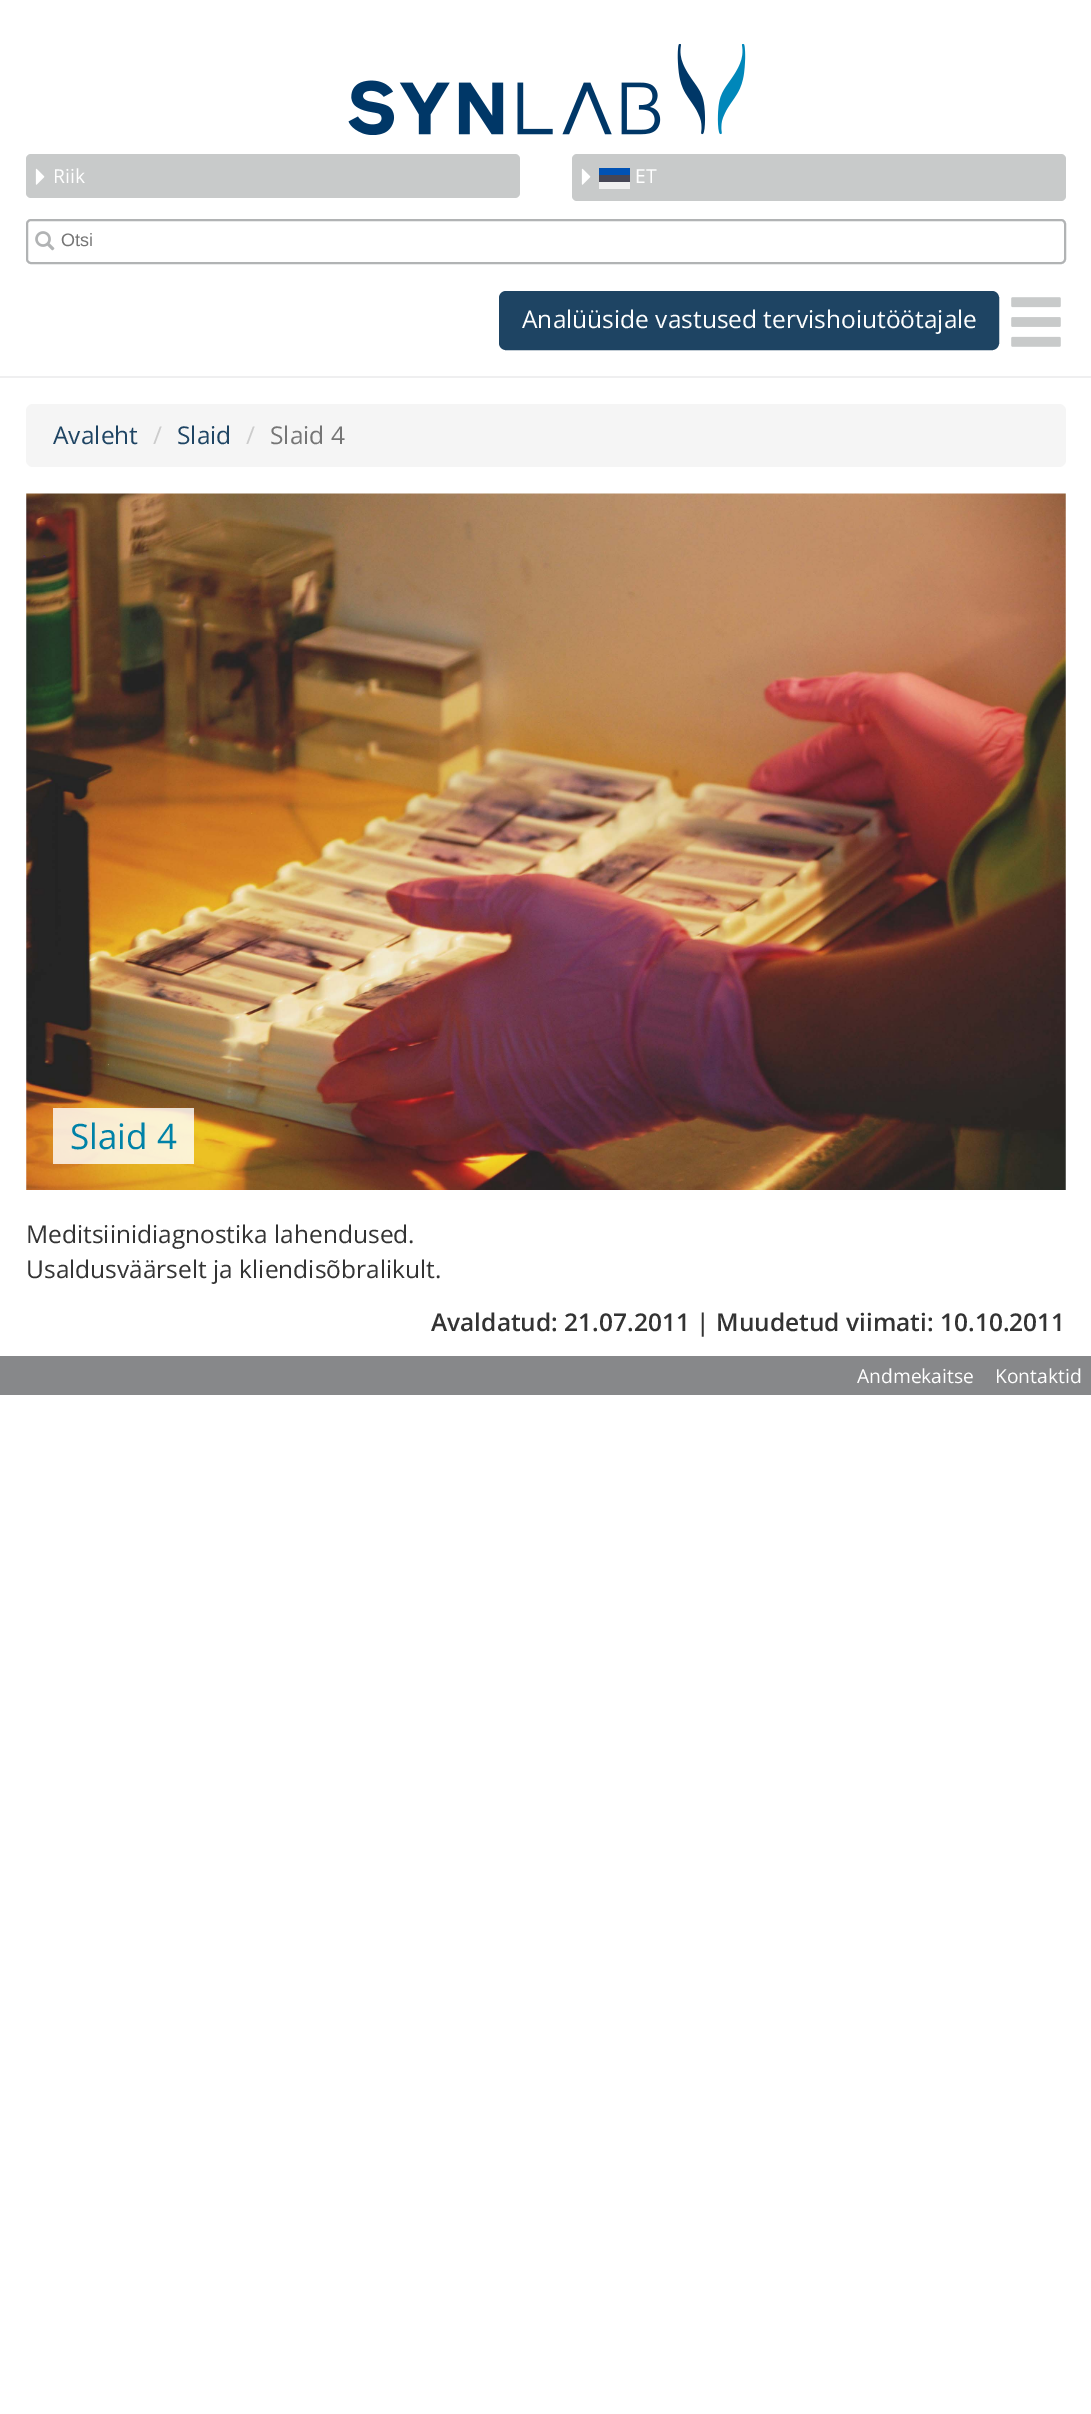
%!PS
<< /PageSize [1091 2414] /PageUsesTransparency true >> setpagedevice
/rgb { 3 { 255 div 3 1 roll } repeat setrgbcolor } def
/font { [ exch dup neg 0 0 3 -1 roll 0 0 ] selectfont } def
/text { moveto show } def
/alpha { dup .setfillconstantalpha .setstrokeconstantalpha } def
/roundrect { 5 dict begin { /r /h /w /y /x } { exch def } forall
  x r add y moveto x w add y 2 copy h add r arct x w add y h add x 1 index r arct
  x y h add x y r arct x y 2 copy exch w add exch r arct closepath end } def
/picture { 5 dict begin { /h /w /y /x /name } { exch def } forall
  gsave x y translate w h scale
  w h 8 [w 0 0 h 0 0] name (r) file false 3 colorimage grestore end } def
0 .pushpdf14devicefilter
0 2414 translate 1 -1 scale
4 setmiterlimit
255 255 255 rgb
0 0 1091 2414 rectfill
(img_01.rgb) 348 44 398 91 picture
200 202 202 rgb
26 154 494 44 5 roundrect fill
(img_02.rgb) 35 168 10 17 picture
572 154 494 47 5 roundrect fill
(img_02.rgb) 581 168 10 17 picture
0 82 180 rgb
599 168 31 7 rectfill
70 70 85 rgb
599 175 31 7 rectfill
240 240 240 rgb
599 182 31 7 rectfill
177 179 180 rgb
2 setlinewidth
27 220 1038 43 4 roundrect stroke
(img_03.rgb) 35 231 20 20 picture
30 68 99 rgb
500 292 498 57 6 roundrect gsave fill grestore
stroke
(img_04.rgb) 1011 297 50 50 picture
239 239 240 rgb
0 376 1091 2 rectfill
245 245 245 rgb
26 404 1040 63 7 roundrect fill
(img_05.rgb) 26 493 1040 697 picture
0.8 alpha
255 255 255 rgb
53 1108 141 56 rectfill
1 alpha
135 136 138 rgb
0 1356 1091 39 rectfill
/OpenSans-Regular 19.25 font
255 255 255 rgb
(Riik) 53 183 text
(ET) 635 183 text
/LiberationSans-Regular 18 font
117 117 117 rgb
(Otsi) 61 246 text
/OpenSans-Regular 24.5 font
255 255 255 rgb
(Analüüside vastused tervishoiutöötajale) 522 328 text
30 68 99 rgb
(Avaleht) 53 444 text
204 204 204 rgb
(/) 153 444 text
30 68 99 rgb
(Slaid) 177 444 text
204 204 204 rgb
(/) 246 444 text
117 117 117 rgb
(Slaid 4) 270 444 text
/OpenSans-Regular 35 font
0 130 167 rgb
(Slaid 4) 70 1149 text
/OpenSans-Regular 24.5 font
51 51 51 rgb
(Meditsiinidiagnostika lahendused.) 26 1243 text
(Usaldusväärselt ja kliendisõbralikult.) 26 1278 text
/OpenSans-SemiBold 24.5 font
(Avaldatud: 21.07.2011 | Muudetud viimati: 10.10.2011) 431 1331 text
/OpenSans-Regular 19.25 font
255 255 255 rgb
(Andmekaitse) 857 1383 text
(Kontaktid) 995 1383 text
.poppdf14devicefilter showpage
